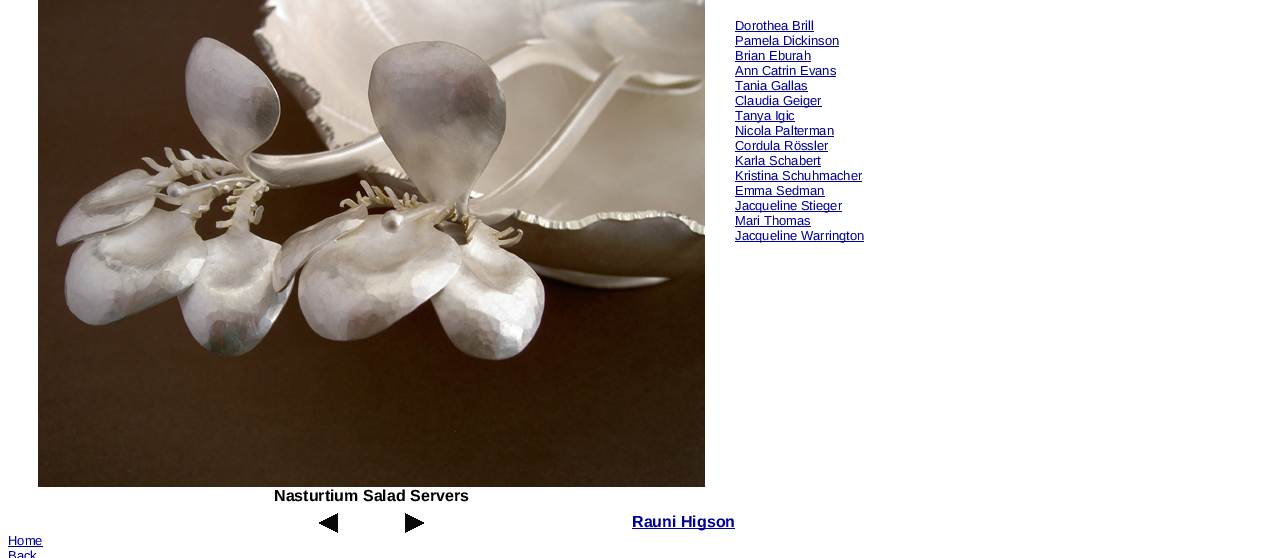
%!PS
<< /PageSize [1272 558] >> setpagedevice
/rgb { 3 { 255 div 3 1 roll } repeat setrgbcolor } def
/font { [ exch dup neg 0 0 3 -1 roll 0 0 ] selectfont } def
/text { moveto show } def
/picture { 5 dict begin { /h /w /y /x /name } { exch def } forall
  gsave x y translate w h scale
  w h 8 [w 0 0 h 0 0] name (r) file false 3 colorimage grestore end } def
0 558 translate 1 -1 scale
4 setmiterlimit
255 255 255 rgb
0 0 1272 558 rectfill
(img_01.rgb) 38 0 667 487 picture
0 0 153 rgb
735 31 79 1 rectfill
735 46 104 1 rectfill
735 61 76 1 rectfill
735 76 101 1 rectfill
735 91 73 1 rectfill
735 106 87 1 rectfill
735 121 60 1 rectfill
735 136 99 1 rectfill
735 151 93 1 rectfill
735 166 86 1 rectfill
735 181 127 1 rectfill
735 196 90 1 rectfill
735 211 107 1 rectfill
735 226 76 1 rectfill
735 241 129 1 rectfill
(img_02.rgb) 319 513 19 20 picture
(img_03.rgb) 405 513 19 20 picture
632 528 103 1 rectfill
8 546 35 1 rectfill
/LiberationSans-Regular 13 font
(Dorothea Brill) 735 30 text
(Pamela Dickinson) 735 45 text
(Brian Eburah) 735 60 text
(Ann Catrin Evans) 735 75 text
(Tania Gallas) 735 90 text
(Claudia Geiger) 735 105 text
(Tanya Igic) 735 120 text
(Nicola Palterman) 735 135 text
(Cordula Rössler) 735 150 text
(Karla Schabert) 735 165 text
(Kristina Schuhmacher) 735 180 text
(Emma Sedman) 735 195 text
(Jacqueline Stieger) 735 210 text
(Mari Thomas) 735 225 text
(Jacqueline Warrington) 735 240 text
/LiberationSans-Bold 16 font
0 0 0 rgb
(Nasturtium Salad Servers) 274 501 text
0 0 153 rgb
(Rauni Higson) 632 527 text
/LiberationSans-Regular 13 font
(Home) 8 545 text
(Back) 8 560 text
showpage
